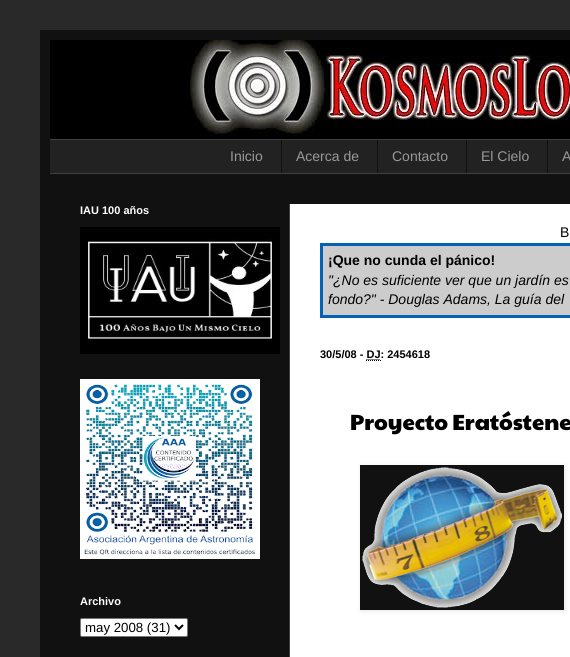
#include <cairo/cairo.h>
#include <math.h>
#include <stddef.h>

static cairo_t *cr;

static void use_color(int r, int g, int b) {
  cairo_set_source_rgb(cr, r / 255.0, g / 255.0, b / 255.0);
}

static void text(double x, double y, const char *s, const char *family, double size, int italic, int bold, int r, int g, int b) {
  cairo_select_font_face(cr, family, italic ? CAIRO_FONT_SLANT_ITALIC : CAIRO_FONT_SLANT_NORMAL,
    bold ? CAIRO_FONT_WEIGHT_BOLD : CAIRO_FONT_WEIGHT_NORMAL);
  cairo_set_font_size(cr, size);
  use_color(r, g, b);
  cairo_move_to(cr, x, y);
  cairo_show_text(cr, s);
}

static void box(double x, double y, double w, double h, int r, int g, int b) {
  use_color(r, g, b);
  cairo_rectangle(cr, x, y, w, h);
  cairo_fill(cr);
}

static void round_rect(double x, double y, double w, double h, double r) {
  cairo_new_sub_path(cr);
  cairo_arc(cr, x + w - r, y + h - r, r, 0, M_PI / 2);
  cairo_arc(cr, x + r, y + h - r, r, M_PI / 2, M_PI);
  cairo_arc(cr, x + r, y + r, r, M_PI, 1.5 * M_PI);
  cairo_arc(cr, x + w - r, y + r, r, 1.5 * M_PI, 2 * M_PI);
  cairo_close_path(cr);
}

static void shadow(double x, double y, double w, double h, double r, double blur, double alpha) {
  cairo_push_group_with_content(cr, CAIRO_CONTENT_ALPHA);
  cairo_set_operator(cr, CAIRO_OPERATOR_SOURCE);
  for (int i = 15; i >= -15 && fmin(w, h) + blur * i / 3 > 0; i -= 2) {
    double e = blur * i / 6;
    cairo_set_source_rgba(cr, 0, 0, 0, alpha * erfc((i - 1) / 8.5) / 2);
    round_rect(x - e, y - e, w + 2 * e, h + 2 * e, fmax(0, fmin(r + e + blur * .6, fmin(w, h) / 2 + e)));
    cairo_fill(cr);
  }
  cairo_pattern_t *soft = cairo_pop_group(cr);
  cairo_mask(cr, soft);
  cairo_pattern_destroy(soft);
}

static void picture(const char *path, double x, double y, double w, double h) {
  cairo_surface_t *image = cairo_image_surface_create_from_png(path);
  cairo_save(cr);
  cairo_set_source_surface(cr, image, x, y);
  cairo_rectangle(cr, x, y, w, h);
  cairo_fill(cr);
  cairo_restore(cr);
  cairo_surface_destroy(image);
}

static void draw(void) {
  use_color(41, 41, 41);
  cairo_paint(cr);
  box(40, 30, 530, 627, 17, 17, 17);
  picture("img_01.png", 50, 40, 520, 99);
  box(50, 140, 520, 33, 34, 34, 34);
  box(50, 139, 520, 1, 64, 64, 64);
  box(50, 173, 520, 1, 64, 64, 64);
  box(281, 140, 1, 33, 17, 17, 17);
  box(377, 140, 1, 33, 17, 17, 17);
  box(466, 140, 1, 33, 17, 17, 17);
  box(547, 140, 1, 33, 17, 17, 17);
  box(289, 204, 1, 453, 64, 64, 64);
  picture("img_02.png", 80, 227, 200, 127);
  picture("img_03.png", 80, 379, 180, 180);
  use_color(255, 255, 255);
  round_rect(80.5, 618.5, 107, 18, 1.5);
  cairo_fill_preserve(cr);
  use_color(118, 118, 118);
  cairo_set_line_width(cr, 1);
  cairo_stroke(cr);
  cairo_new_path(cr);
  cairo_move_to(cr, 175, 625);
  cairo_line_to(cr, 179, 629);
  cairo_line_to(cr, 183, 625);
  use_color(0, 0, 0);
  cairo_set_line_width(cr, 2);
  cairo_stroke(cr);
  box(290, 204, 280, 453, 255, 255, 255);
  use_color(204, 204, 204);
  cairo_rectangle(cr, 321.5, 244.5, 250, 72);
  cairo_fill_preserve(cr);
  use_color(4, 98, 181);
  cairo_set_line_width(cr, 3);
  cairo_stroke(cr);
  cairo_new_path(cr);
  cairo_move_to(cr, 366, 360.5);
  cairo_line_to(cr, 381, 360.5);
  cairo_move_to(cr, 366.5, 359.5);
  cairo_line_to(cr, 380.5, 359.5);
  use_color(0, 0, 0);
  cairo_set_line_width(cr, 1);
  cairo_set_dash(cr, (double[]){1, 1}, 2, 0);
  cairo_stroke(cr);
  use_color(0, 0, 0);
  shadow(361, 466, 204, 145, 0, 2.5, 0.1);
  box(360, 465, 204, 145, 17, 17, 17);
  picture("img_04.png", 362, 467, 200, 141);
  text(230, 161, "Inicio", "Liberation Sans", 14, 0, 0, 153, 153, 153);
  text(296, 161, "Acerca de", "Liberation Sans", 14, 0, 0, 153, 153, 153);
  text(392, 161, "Contacto", "Liberation Sans", 14, 0, 0, 153, 153, 153);
  text(481, 161, "El Cielo", "Liberation Sans", 14, 0, 0, 153, 153, 153);
  text(562, 161, "A", "Liberation Sans", 14, 0, 0, 153, 153, 153);
  text(80, 214, "IAU 100 años", "Liberation Sans", 11, 0, 1, 255, 255, 255);
  text(80, 605, "Archivo", "Liberation Sans", 11, 0, 1, 255, 255, 255);
  text(85, 632, "may 2008 (31)", "Liberation Sans", 13.25, 0, 0, 0, 0, 0);
  text(560, 237, "B", "Liberation Sans", 14, 0, 0, 0, 0, 0);
  text(328, 265, "¡Que no cunda el pánico!", "Liberation Sans", 14, 0, 1, 0, 0, 0);
  text(328, 285, "\"¿No es suficiente ver que un jardín es", "Liberation Sans", 14, 1, 0, 0, 0, 0);
  text(328, 304, "fondo?\" - Douglas Adams, La guía del", "Liberation Sans", 14, 1, 0, 0, 0, 0);
  text(320, 358, "30/5/08 - DJ: 2454618", "Liberation Sans", 11, 0, 1, 0, 0, 0);
  text(350, 430, "Proyecto Eratóstene", "Paytone One", 22, 0, 0, 0, 0, 0);
}

int main(void) {
  cairo_surface_t *surface = cairo_image_surface_create(CAIRO_FORMAT_RGB24, 570, 657);
  cr = cairo_create(surface);
  cairo_font_options_t *options = cairo_font_options_create();
  cairo_font_options_set_hint_metrics(options, CAIRO_HINT_METRICS_OFF);
  cairo_font_options_set_hint_style(options, CAIRO_HINT_STYLE_NONE);
  cairo_set_font_options(cr, options);
  cairo_set_miter_limit(cr, 4);
  draw();
  cairo_surface_write_to_png(surface, "out.png");
  cairo_font_options_destroy(options);
  cairo_destroy(cr);
  cairo_surface_destroy(surface);
  return 0;
}
